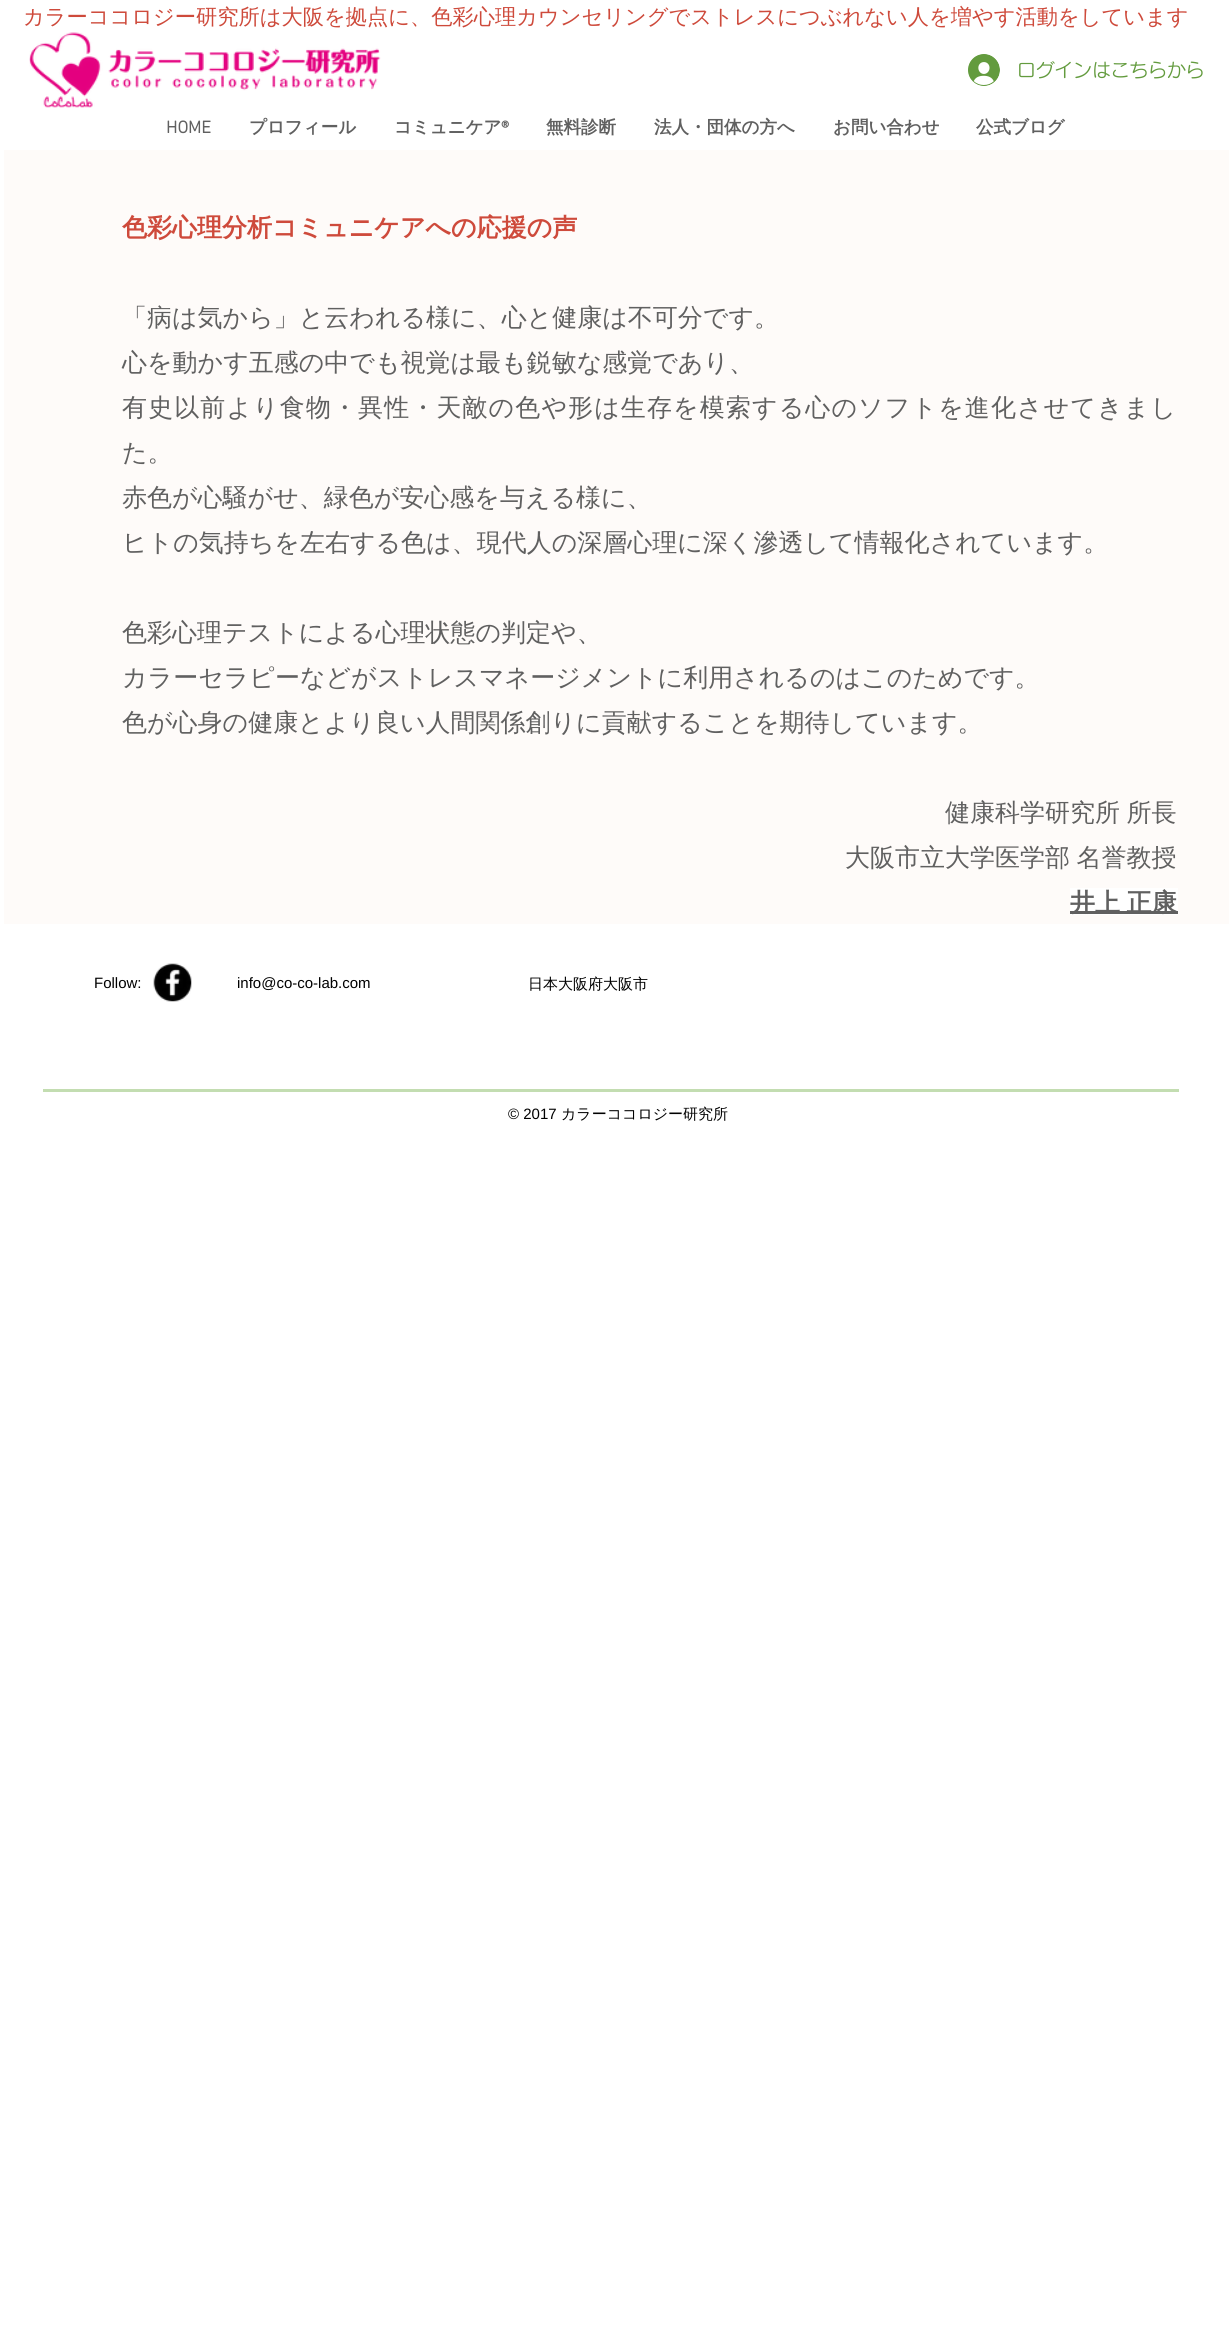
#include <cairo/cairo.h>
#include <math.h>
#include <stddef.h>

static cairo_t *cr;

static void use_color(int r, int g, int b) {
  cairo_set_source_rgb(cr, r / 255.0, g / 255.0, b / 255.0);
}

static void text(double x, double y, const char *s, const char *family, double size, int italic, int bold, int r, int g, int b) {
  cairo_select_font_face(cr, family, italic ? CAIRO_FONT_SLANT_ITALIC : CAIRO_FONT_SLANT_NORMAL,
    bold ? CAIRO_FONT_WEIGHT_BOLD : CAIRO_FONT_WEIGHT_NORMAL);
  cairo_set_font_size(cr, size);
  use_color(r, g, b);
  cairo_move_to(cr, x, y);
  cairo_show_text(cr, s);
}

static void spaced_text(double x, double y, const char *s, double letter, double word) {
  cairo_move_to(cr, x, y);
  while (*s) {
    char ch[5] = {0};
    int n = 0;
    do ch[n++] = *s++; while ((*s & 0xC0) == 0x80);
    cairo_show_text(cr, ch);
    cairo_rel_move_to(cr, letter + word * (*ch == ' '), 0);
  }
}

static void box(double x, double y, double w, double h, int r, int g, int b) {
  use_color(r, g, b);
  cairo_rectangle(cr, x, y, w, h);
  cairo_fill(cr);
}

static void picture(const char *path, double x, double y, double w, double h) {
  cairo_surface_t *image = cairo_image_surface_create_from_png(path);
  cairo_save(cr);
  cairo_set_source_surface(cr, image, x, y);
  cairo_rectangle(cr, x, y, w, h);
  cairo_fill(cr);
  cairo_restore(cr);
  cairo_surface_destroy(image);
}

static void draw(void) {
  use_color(255, 255, 255);
  cairo_paint(cr);
  picture("img_01.png", 29, 32, 352, 76);
  picture("img_02.png", 968, 54, 32, 32);
  box(4, 150, 1225, 774, 254, 251, 249);
  box(1070, 888, 108, 27, 255, 255, 255);
  box(1070, 911, 108, 3, 96, 96, 96);
  picture("img_03.png", 153, 963, 39, 39);
  box(43, 1089, 1136, 3, 195, 221, 177);
  text(23, 24, "カラーココロジー研究所は大阪を拠点に、色彩心理カウンセリングでストレスにつぶれない人を増やす活動をしています", "WenQuanYi Zen Hei Medium", 21.25, 0, 0, 206, 74, 59);
  text(1017, 77, "ログインはこちらから", "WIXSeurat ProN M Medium", 18.75, 0, 0, 99, 155, 62);
  text(166, 133, "HOME", "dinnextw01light", 17.5, 0, 1, 96, 96, 96);
  text(249, 133, "プロフィール", "WenQuanYi Zen Hei", 17.5, 0, 1, 96, 96, 96);
  text(394, 133, "コミュニケア", "WenQuanYi Zen Hei", 17.5, 0, 1, 96, 96, 96);
  text(501, 133, "®", "dinnextw01light", 17.5, 0, 1, 96, 96, 96);
  text(546, 133, "無料診断", "WenQuanYi Zen Hei", 17.5, 0, 1, 96, 96, 96);
  text(654, 133, "法人・団体の方へ", "WenQuanYi Zen Hei", 17.5, 0, 1, 96, 96, 96);
  text(833, 133, "お問い合わせ", "WenQuanYi Zen Hei", 17.5, 0, 1, 96, 96, 96);
  text(976, 133, "公式ブログ", "WenQuanYi Zen Hei", 17.5, 0, 1, 96, 96, 96);
  text(122, 236, "色彩心理分析コミュニケアへの応援の声", "WenQuanYi Zen Hei", 25, 0, 1, 206, 74, 59);
  text(122, 326, "「病は気から」と云われる様に、心と健康は不可分です。", "WenQuanYi Zen Hei Medium", 25, 0, 0, 96, 96, 96);
  text(122, 371, "心を動かす五感の中でも視覚は最も鋭敏な感覚であり、", "WenQuanYi Zen Hei Medium", 25, 0, 0, 96, 96, 96);
  spaced_text(122, 416, "有史以前より食物・異性・天敵の色や形は生存を模索する心のソフトを進化させてきまし", 1.1, 0);
  text(122, 461, "た。", "WenQuanYi Zen Hei Medium", 25, 0, 0, 96, 96, 96);
  text(122, 506, "赤色が心騒がせ、緑色が安心感を与える様に、", "WenQuanYi Zen Hei Medium", 25, 0, 0, 96, 96, 96);
  text(122, 551, "ヒトの気持ちを左右する色は、現代人の深層心理に深く滲透して情報化されています。", "WenQuanYi Zen Hei Medium", 25, 0, 0, 96, 96, 96);
  text(122, 641, "色彩心理テストによる心理状態の判定や、", "WenQuanYi Zen Hei Medium", 25, 0, 0, 96, 96, 96);
  text(122, 686, "カラーセラピーなどがストレスマネージメントに利用されるのはこのためです。", "WenQuanYi Zen Hei Medium", 25, 0, 0, 96, 96, 96);
  text(122, 731, "色が心身の健康とより良い人間関係創りに貢献することを期待しています。", "WenQuanYi Zen Hei Medium", 25, 0, 0, 96, 96, 96);
  spaced_text(945, 821, "健康科学研究所 所長", 0, -1);
  spaced_text(845, 866, "大阪市立大学医学部 名誉教授", 0, -1);
  cairo_select_font_face(cr, "WenQuanYi Zen Hei", CAIRO_FONT_SLANT_NORMAL, CAIRO_FONT_WEIGHT_BOLD);
  spaced_text(1070, 911, "井上 正康", 0, -1);
  text(94, 988, "Follow:", "Liberation Sans", 15, 0, 0, 0, 0, 0);
  text(237, 988, "info@co-co-lab.com", "Liberation Sans", 15, 0, 0, 0, 0, 0);
  text(528, 989, "日本大阪府大阪市", "WenQuanYi Zen Hei Medium", 15, 0, 0, 0, 0, 0);
  text(508, 1119, "© 2017", "Liberation Sans", 15, 0, 0, 0, 0, 0);
  text(561, 1119, "カラーココロジー研究所", "WenQuanYi Zen Hei Medium", 15, 0, 0, 0, 0, 0);
}

int main(void) {
  cairo_surface_t *surface = cairo_image_surface_create(CAIRO_FORMAT_RGB24, 1231, 2328);
  cr = cairo_create(surface);
  cairo_font_options_t *options = cairo_font_options_create();
  cairo_font_options_set_hint_metrics(options, CAIRO_HINT_METRICS_OFF);
  cairo_font_options_set_hint_style(options, CAIRO_HINT_STYLE_NONE);
  cairo_set_font_options(cr, options);
  cairo_set_miter_limit(cr, 4);
  draw();
  cairo_surface_write_to_png(surface, "out.png");
  cairo_font_options_destroy(options);
  cairo_destroy(cr);
  cairo_surface_destroy(surface);
  return 0;
}
